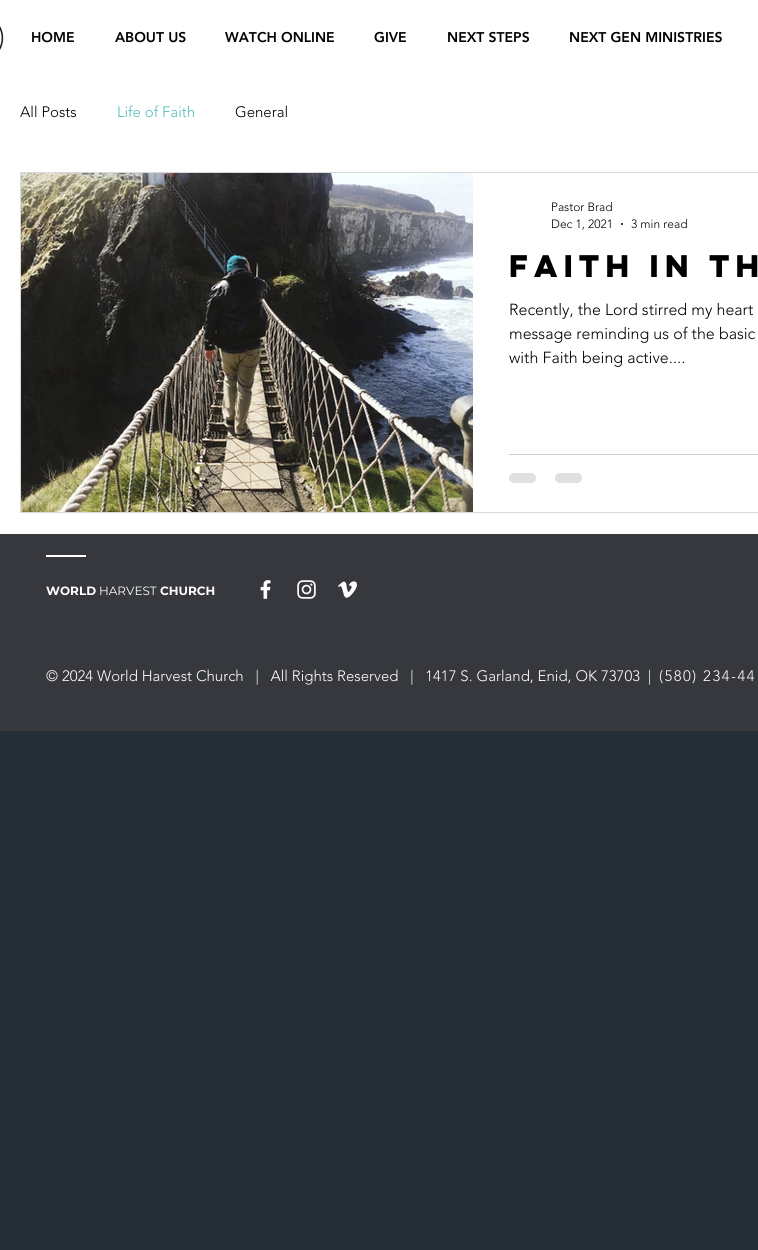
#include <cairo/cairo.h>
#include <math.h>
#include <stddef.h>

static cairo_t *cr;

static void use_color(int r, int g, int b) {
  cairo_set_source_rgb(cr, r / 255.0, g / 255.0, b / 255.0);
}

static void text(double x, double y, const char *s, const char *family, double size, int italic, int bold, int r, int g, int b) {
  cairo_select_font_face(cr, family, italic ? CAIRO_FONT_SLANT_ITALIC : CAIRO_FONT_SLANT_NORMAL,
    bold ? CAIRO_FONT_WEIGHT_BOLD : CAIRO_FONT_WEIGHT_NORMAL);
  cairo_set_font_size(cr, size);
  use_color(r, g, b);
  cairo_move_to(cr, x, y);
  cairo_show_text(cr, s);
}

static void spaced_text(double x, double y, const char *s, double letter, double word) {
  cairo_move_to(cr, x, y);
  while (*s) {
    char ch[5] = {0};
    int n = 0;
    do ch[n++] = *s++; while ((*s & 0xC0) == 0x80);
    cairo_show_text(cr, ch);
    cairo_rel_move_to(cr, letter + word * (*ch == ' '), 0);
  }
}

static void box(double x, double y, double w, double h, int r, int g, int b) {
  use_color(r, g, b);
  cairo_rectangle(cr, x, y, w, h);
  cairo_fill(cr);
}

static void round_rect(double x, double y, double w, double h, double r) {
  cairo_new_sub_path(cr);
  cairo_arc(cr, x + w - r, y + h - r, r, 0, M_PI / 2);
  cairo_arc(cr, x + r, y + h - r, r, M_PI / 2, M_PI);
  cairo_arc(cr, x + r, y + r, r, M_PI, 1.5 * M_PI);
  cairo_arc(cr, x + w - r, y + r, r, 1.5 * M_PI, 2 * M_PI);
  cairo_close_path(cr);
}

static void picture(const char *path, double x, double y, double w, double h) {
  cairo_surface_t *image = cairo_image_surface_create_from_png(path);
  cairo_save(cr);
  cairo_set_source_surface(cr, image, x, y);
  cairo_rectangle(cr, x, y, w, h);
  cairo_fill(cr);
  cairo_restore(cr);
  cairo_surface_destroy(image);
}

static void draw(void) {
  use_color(37, 46, 54);
  cairo_paint(cr);
  box(0, 0, 758, 534, 255, 255, 255);
  picture("img_01.png", 0, 26, 4, 24);
  cairo_rectangle(cr, 20.5, 172.5, 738, 340);
  use_color(217, 217, 217);
  cairo_set_line_width(cr, 1);
  cairo_stroke(cr);
  picture("img_02.png", 21, 173, 452, 339);
  use_color(0, 0, 0);
  cairo_arc(cr, 622, 224, 1, 0, 2 * M_PI);
  cairo_fill(cr);
  box(509, 454, 249, 1, 204, 204, 204);
  use_color(224, 224, 224);
  round_rect(509, 473, 27, 10, 5);
  cairo_fill(cr);
  round_rect(555, 473, 27, 10, 5);
  cairo_fill(cr);
  box(0, 534, 758, 197, 54, 56, 61);
  box(46, 555, 40, 2, 255, 255, 255);
  picture("img_03.png", 260, 580, 11, 19);
  picture("img_04.png", 297, 580, 19, 19);
  picture("img_05.png", 338, 581, 20, 17);
  text(31, 42, "HOME", "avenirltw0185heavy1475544 Black", 14, 0, 0, 0, 0, 0);
  text(115, 42, "ABOUT US", "avenirltw0185heavy1475544 Black", 14, 0, 0, 0, 0, 0);
  text(225, 42, "WATCH ONLINE", "avenirltw0185heavy1475544 Black", 14, 0, 0, 0, 0, 0);
  text(374, 42, "GIVE", "avenirltw0185heavy1475544 Black", 14, 0, 0, 0, 0, 0);
  text(447, 42, "NEXT STEPS", "avenirltw0185heavy1475544 Black", 14, 0, 0, 0, 0, 0);
  text(569, 42, "NEXT GEN MINISTRIES", "avenirltw0185heavy1475544 Black", 14, 0, 0, 0, 0, 0);
  text(20, 117, "All Posts", "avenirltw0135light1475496 Light", 15, 0, 0, 0, 0, 0);
  text(117, 117, "Life of Faith", "avenirltw0135light1475496 Light", 15, 0, 0, 87, 187, 191);
  text(235, 117, "General", "avenirltw0135light1475496 Light", 15, 0, 0, 0, 0, 0);
  text(551, 211, "Pastor Brad", "avenirltw0135light1475496 Light", 12, 0, 0, 0, 0, 0);
  text(551, 228, "Dec 1, 2021", "avenirltw0135light1475496 Light", 12, 0, 0, 0, 0, 0);
  text(631, 228, "3 min read", "avenirltw0135light1475496 Light", 12, 0, 0, 0, 0, 0);
  text(509, 277, "Faith in th", "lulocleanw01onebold", 28, 0, 1, 0, 0, 0);
  text(509, 315, "Recently, the Lord stirred my heart", "avenirltw0135light1475496 Light", 16, 0, 0, 0, 0, 0);
  text(509, 339, "message reminding us of the basic", "avenirltw0135light1475496 Light", 16, 0, 0, 0, 0, 0);
  text(509, 363, "with Faith being active....", "avenirltw0135light1475496 Light", 16, 0, 0, 0, 0, 0);
  text(46, 595, "WORLD", "Montserrat", 12, 0, 1, 255, 255, 255);
  text(99, 595, "HARVEST", "Montserrat", 12, 0, 0, 255, 255, 255);
  text(160, 595, "CHURCH", "Montserrat", 12, 0, 1, 255, 255, 255);
  text(46, 681, "© 2024 World Harvest Church   |   All Rights Reserved   |   1417 S. Garland, Enid, OK 73703  |", "avenirltw0135light1475496 Light", 15, 0, 0, 255, 255, 255);
  spaced_text(659, 681, "(580) 234-44", 1.5, 0);
}

int main(void) {
  cairo_surface_t *surface = cairo_image_surface_create(CAIRO_FORMAT_RGB24, 758, 1250);
  cr = cairo_create(surface);
  cairo_font_options_t *options = cairo_font_options_create();
  cairo_font_options_set_hint_metrics(options, CAIRO_HINT_METRICS_OFF);
  cairo_font_options_set_hint_style(options, CAIRO_HINT_STYLE_NONE);
  cairo_set_font_options(cr, options);
  cairo_set_miter_limit(cr, 4);
  draw();
  cairo_surface_write_to_png(surface, "out.png");
  cairo_font_options_destroy(options);
  cairo_destroy(cr);
  cairo_surface_destroy(surface);
  return 0;
}
